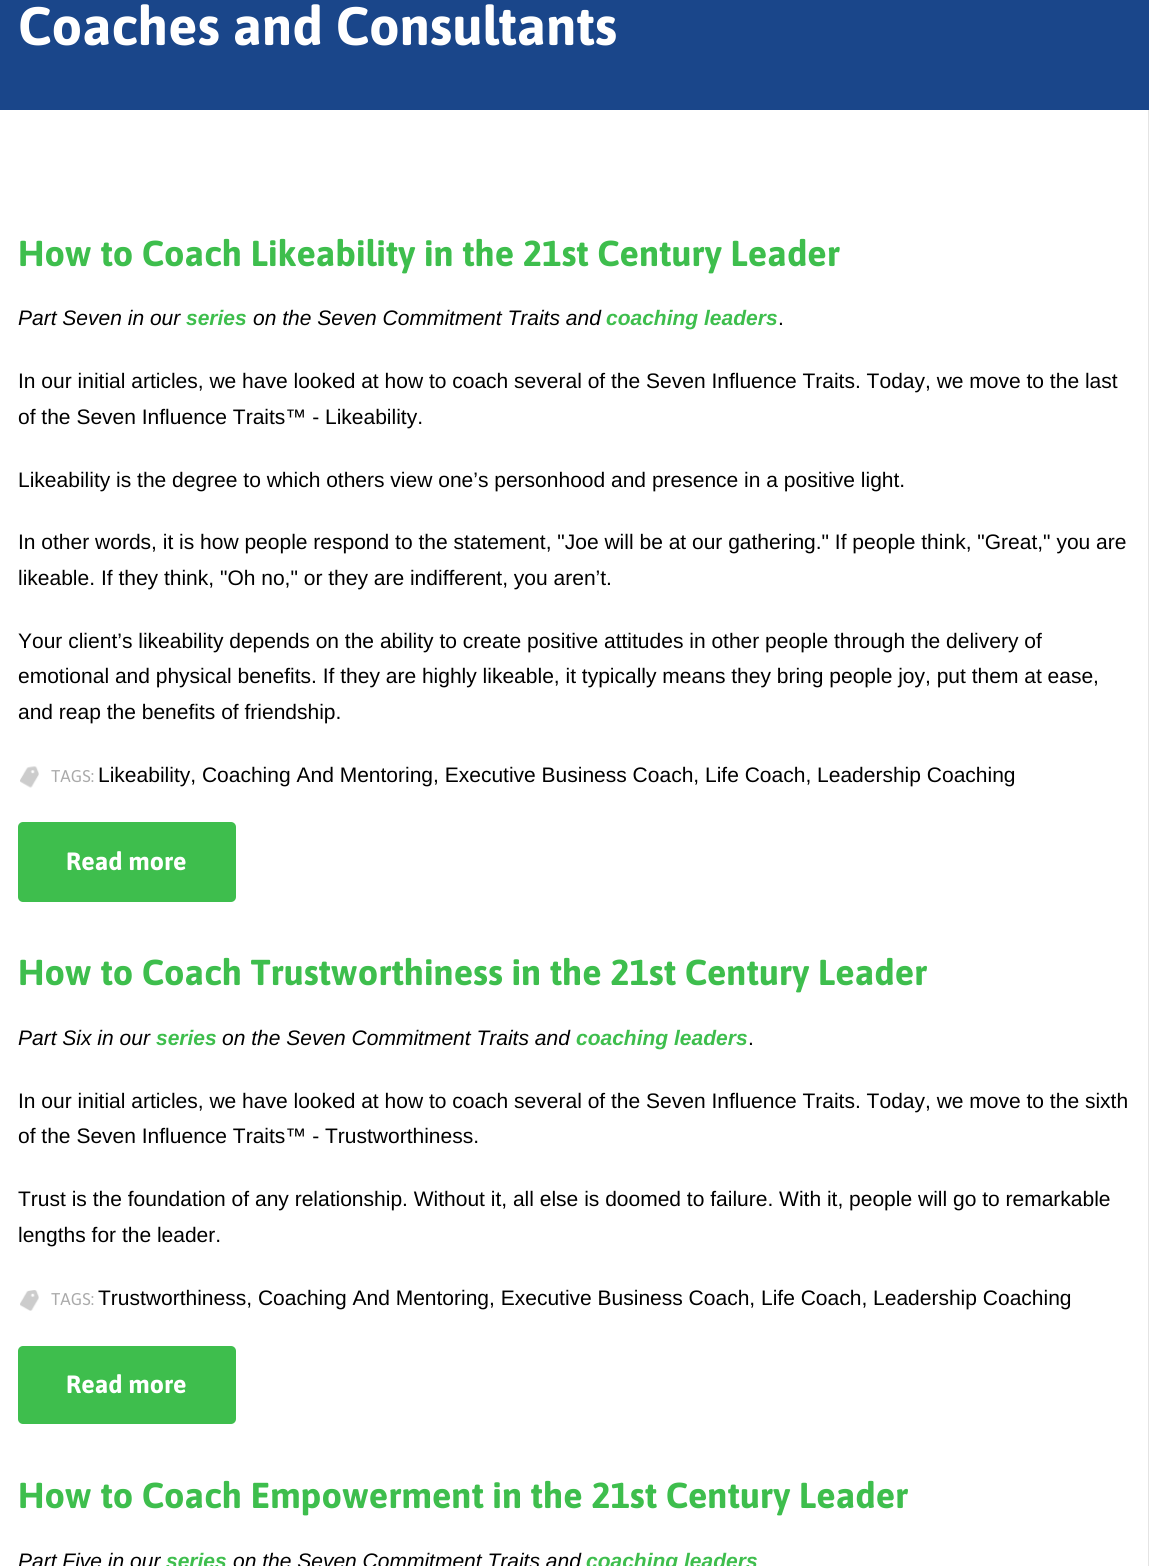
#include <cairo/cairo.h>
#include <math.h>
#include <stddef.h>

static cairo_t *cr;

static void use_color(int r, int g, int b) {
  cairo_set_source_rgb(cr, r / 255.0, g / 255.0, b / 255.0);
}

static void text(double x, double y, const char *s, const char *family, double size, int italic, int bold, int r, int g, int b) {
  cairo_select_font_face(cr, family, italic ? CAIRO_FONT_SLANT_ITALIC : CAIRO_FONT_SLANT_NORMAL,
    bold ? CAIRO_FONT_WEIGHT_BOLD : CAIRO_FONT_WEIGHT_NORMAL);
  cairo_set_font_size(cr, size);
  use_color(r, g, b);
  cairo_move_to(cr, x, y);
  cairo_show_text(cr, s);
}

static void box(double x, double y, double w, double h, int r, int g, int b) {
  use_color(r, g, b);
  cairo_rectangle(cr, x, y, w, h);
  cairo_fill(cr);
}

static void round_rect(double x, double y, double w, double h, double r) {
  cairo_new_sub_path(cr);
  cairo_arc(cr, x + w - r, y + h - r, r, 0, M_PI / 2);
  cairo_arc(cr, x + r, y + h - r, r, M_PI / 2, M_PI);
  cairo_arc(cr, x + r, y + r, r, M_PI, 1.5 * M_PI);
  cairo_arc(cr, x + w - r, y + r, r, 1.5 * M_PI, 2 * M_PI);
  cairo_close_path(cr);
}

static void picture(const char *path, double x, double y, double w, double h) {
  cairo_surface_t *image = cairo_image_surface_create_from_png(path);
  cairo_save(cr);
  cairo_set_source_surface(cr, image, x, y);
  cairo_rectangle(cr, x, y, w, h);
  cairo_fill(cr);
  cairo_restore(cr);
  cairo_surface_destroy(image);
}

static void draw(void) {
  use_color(255, 255, 255);
  cairo_paint(cr);
  box(0, 0, 1149, 110, 26, 70, 138);
  box(1148, 110, 1, 1456, 228, 228, 228);
  picture("img_01.png", 20, 766, 19, 22);
  use_color(62, 190, 77);
  round_rect(18, 822, 218, 80, 5);
  cairo_fill(cr);
  picture("img_02.png", 20, 1290, 19, 21);
  round_rect(18, 1346, 218, 78, 5);
  cairo_fill(cr);
  text(18, 45, "Coaches and Consultants", "Asap", 54, 0, 1, 255, 255, 255);
  text(18, 266, "How to Coach Likeability in the 21st Century Leader", "Asap", 36, 0, 1, 62, 190, 77);
  text(18, 325, "Part Seven in our", "Liberation Sans", 21, 1, 0, 0, 0, 0);
  text(186, 325, "series", "Liberation Sans", 21, 1, 1, 62, 190, 77);
  text(253, 325, "on the Seven Commitment Traits and", "Liberation Sans", 21, 1, 0, 0, 0, 0);
  text(606, 325, "coaching leaders", "Liberation Sans", 21, 1, 1, 62, 190, 77);
  text(778, 325, ".", "Liberation Sans", 21, 0, 0, 0, 0, 0);
  text(18, 388, "In our initial articles, we have looked at how to coach several of the Seven Influence Traits. Today, we move to the last", "Liberation Sans", 21, 0, 0, 0, 0, 0);
  text(18, 424, "of the Seven Influence Traits™ - Likeability.", "Liberation Sans", 21, 0, 0, 0, 0, 0);
  text(18, 487, "Likeability is the degree to which others view one’s personhood and presence in a positive light.", "Liberation Sans", 21, 0, 0, 0, 0, 0);
  text(18, 549, "In other words, it is how people respond to the statement, \"Joe will be at our gathering.\" If people think, \"Great,\" you are", "Liberation Sans", 21, 0, 0, 0, 0, 0);
  text(18, 585, "likeable. If they think, \"Oh no,\" or they are indifferent, you aren’t.", "Liberation Sans", 21, 0, 0, 0, 0, 0);
  text(18, 648, "Your client’s likeability depends on the ability to create positive attitudes in other people through the delivery of", "Liberation Sans", 21, 0, 0, 0, 0, 0);
  text(18, 683, "emotional and physical benefits. If they are highly likeable, it typically means they bring people joy, put them at ease,", "Liberation Sans", 21, 0, 0, 0, 0, 0);
  text(18, 719, "and reap the benefits of friendship.", "Liberation Sans", 21, 0, 0, 0, 0, 0);
  text(51, 782, "TAGS:", "Asap", 17, 0, 0, 170, 170, 170);
  text(98, 782, "Likeability, Coaching And Mentoring, Executive Business Coach, Life Coach, Leadership Coaching", "Liberation Sans", 21, 0, 0, 0, 0, 0);
  text(66, 870, "Read more", "Asap", 25, 0, 1, 255, 255, 255);
  text(18, 985, "How to Coach Trustworthiness in the 21st Century Leader", "Asap", 36, 0, 1, 62, 190, 77);
  text(18, 1045, "Part Six in our", "Liberation Sans", 21, 1, 0, 0, 0, 0);
  text(156, 1045, "series", "Liberation Sans", 21, 1, 1, 62, 190, 77);
  text(222, 1045, "on the Seven Commitment Traits and", "Liberation Sans", 21, 1, 0, 0, 0, 0);
  text(576, 1045, "coaching leaders", "Liberation Sans", 21, 1, 1, 62, 190, 77);
  text(748, 1045, ".", "Liberation Sans", 21, 0, 0, 0, 0, 0);
  text(18, 1108, "In our initial articles, we have looked at how to coach several of the Seven Influence Traits. Today, we move to the sixth", "Liberation Sans", 21, 0, 0, 0, 0, 0);
  text(18, 1143, "of the Seven Influence Traits™ - Trustworthiness.", "Liberation Sans", 21, 0, 0, 0, 0, 0);
  text(18, 1206, "Trust is the foundation of any relationship. Without it, all else is doomed to failure. With it, people will go to remarkable", "Liberation Sans", 21, 0, 0, 0, 0, 0);
  text(18, 1242, "lengths for the leader.", "Liberation Sans", 21, 0, 0, 0, 0, 0);
  text(51, 1305, "TAGS:", "Asap", 17, 0, 0, 170, 170, 170);
  text(98, 1305, "Trustworthiness, Coaching And Mentoring, Executive Business Coach, Life Coach, Leadership Coaching", "Liberation Sans", 21, 0, 0, 0, 0, 0);
  text(66, 1393, "Read more", "Asap", 25, 0, 1, 255, 255, 255);
  text(18, 1508, "How to Coach Empowerment in the 21st Century Leader", "Asap", 36, 0, 1, 62, 190, 77);
  text(18, 1568, "Part Five in our", "Liberation Sans", 21, 1, 0, 0, 0, 0);
  text(166, 1568, "series", "Liberation Sans", 21, 1, 1, 62, 190, 77);
  text(233, 1568, "on the Seven Commitment Traits and", "Liberation Sans", 21, 1, 0, 0, 0, 0);
  text(586, 1568, "coaching leaders", "Liberation Sans", 21, 1, 1, 62, 190, 77);
}

int main(void) {
  cairo_surface_t *surface = cairo_image_surface_create(CAIRO_FORMAT_RGB24, 1149, 1566);
  cr = cairo_create(surface);
  cairo_font_options_t *options = cairo_font_options_create();
  cairo_font_options_set_hint_metrics(options, CAIRO_HINT_METRICS_OFF);
  cairo_font_options_set_hint_style(options, CAIRO_HINT_STYLE_NONE);
  cairo_set_font_options(cr, options);
  cairo_set_miter_limit(cr, 4);
  draw();
  cairo_surface_write_to_png(surface, "out.png");
  cairo_font_options_destroy(options);
  cairo_destroy(cr);
  cairo_surface_destroy(surface);
  return 0;
}
